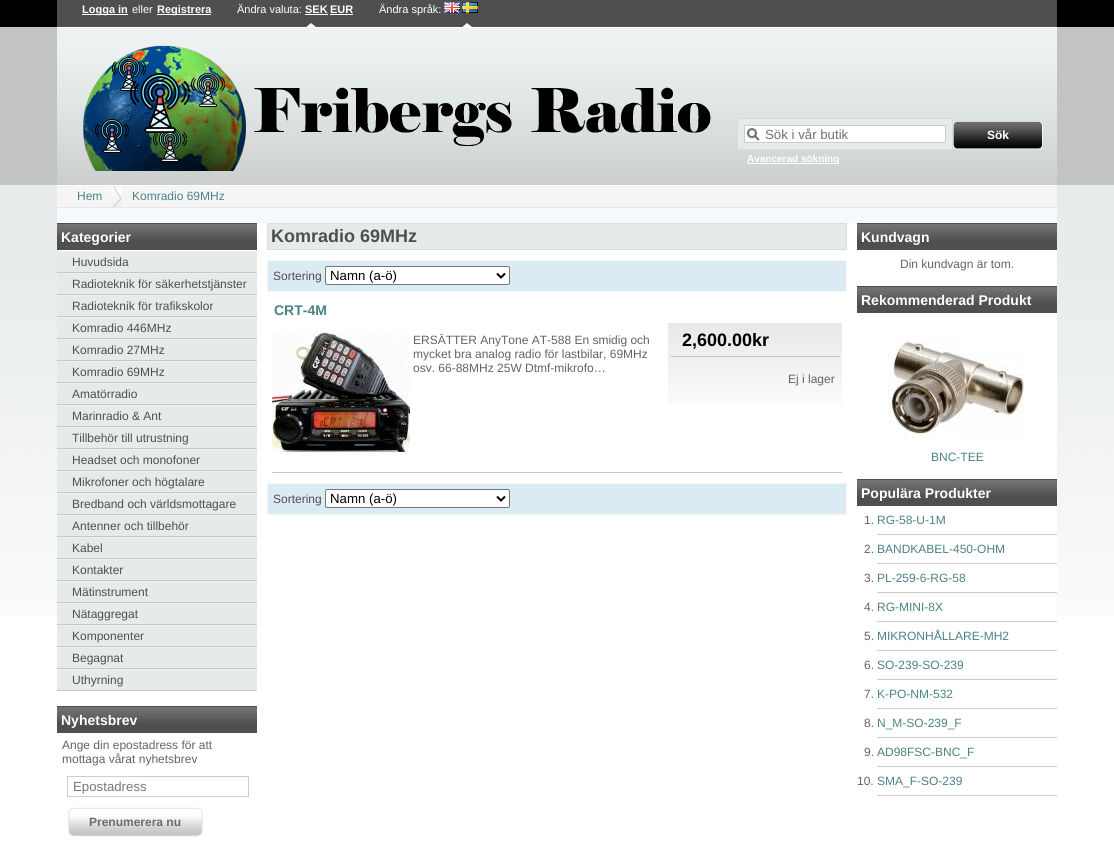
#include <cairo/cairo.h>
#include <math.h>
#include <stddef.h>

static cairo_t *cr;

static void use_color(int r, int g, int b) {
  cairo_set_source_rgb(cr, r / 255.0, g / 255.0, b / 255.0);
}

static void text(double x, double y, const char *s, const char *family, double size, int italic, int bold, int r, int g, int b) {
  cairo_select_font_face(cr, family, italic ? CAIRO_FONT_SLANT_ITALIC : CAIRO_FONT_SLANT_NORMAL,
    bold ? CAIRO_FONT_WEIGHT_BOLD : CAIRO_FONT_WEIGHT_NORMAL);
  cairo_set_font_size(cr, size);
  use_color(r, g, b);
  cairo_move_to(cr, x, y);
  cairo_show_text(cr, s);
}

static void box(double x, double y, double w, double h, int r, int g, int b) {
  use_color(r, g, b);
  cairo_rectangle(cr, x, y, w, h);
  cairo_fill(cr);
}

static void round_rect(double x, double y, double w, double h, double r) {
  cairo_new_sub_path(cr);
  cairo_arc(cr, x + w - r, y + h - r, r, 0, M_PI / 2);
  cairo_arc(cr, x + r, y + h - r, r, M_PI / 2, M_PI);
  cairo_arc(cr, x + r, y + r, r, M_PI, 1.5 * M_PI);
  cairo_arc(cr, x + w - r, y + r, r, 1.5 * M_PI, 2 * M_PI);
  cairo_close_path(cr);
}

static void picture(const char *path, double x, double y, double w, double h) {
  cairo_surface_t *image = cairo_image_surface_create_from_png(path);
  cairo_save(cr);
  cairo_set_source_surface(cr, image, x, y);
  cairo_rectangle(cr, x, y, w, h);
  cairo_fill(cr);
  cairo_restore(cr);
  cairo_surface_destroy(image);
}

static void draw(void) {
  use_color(255, 255, 255);
  cairo_paint(cr);
  picture("img_01.png", 0, 0, 1114, 616);
  box(57, 208, 1000, 15, 246, 250, 252);
  box(57, 0, 1000, 26, 79, 79, 79);
  box(57, 26, 1000, 1, 86, 86, 86);
  box(57, 27, 1000, 1, 255, 255, 255);
  box(82, 14, 46, 1, 255, 255, 255);
  box(157, 14, 54, 1, 255, 255, 255);
  picture("img_02.png", 306, 23, 10, 4);
  box(305, 14, 23, 1, 255, 255, 255);
  box(330, 14, 23, 1, 255, 255, 255);
  picture("img_03.png", 444, 2, 16, 11);
  picture("img_02.png", 462, 23, 10, 4);
  picture("img_04.png", 462, 2, 16, 11);
  picture("img_05.png", 57, 28, 1000, 157);
  box(57, 185, 1000, 1, 255, 255, 255);
  picture("img_06.png", 83, 45, 628, 126);
  use_color(229, 235, 235);
  cairo_rectangle(cr, 737.5, 118.5, 215, 31);
  cairo_fill_preserve(cr);
  use_color(218, 218, 218);
  cairo_set_line_width(cr, 1);
  cairo_stroke(cr);
  box(745, 126, 200, 16, 255, 255, 255);
  picture("img_07.png", 747, 128, 13, 13);
  cairo_rectangle(cr, 744.5, 125.5, 201, 17);
  use_color(205, 205, 205);
  cairo_stroke(cr);
  picture("img_08.png", 953, 121, 90, 29);
  box(747, 163, 92, 1, 255, 255, 255);
  box(57, 186, 1000, 21, 245, 245, 245);
  box(57, 207, 1000, 1, 234, 230, 230);
  picture("img_09.png", 111, 186, 11, 21);
  box(57, 223, 1000, 393, 255, 255, 255);
  picture("img_10.png", 57, 224, 200, 26);
  box(57, 223, 200, 1, 79, 79, 79);
  box(57, 252, 200, 20, 230, 234, 235);
  box(57, 251, 200, 1, 236, 240, 241);
  box(57, 272, 200, 1, 196, 200, 199);
  box(57, 274, 200, 20, 230, 234, 235);
  box(57, 273, 200, 1, 236, 240, 241);
  box(57, 294, 200, 1, 196, 200, 199);
  box(57, 296, 200, 20, 230, 234, 235);
  box(57, 295, 200, 1, 236, 240, 241);
  box(57, 316, 200, 1, 196, 200, 199);
  box(57, 318, 200, 20, 230, 234, 235);
  box(57, 317, 200, 1, 236, 240, 241);
  box(57, 338, 200, 1, 196, 200, 199);
  box(57, 340, 200, 20, 230, 234, 235);
  box(57, 339, 200, 1, 236, 240, 241);
  box(57, 360, 200, 1, 196, 200, 199);
  box(57, 362, 200, 20, 230, 234, 235);
  box(57, 361, 200, 1, 236, 240, 241);
  box(57, 382, 200, 1, 196, 200, 199);
  box(57, 384, 200, 20, 230, 234, 235);
  box(57, 383, 200, 1, 236, 240, 241);
  box(57, 404, 200, 1, 196, 200, 199);
  box(57, 406, 200, 20, 230, 234, 235);
  box(57, 405, 200, 1, 236, 240, 241);
  box(57, 426, 200, 1, 196, 200, 199);
  box(57, 428, 200, 20, 230, 234, 235);
  box(57, 427, 200, 1, 236, 240, 241);
  box(57, 448, 200, 1, 196, 200, 199);
  box(57, 450, 200, 20, 230, 234, 235);
  box(57, 449, 200, 1, 236, 240, 241);
  box(57, 470, 200, 1, 196, 200, 199);
  box(57, 472, 200, 20, 230, 234, 235);
  box(57, 471, 200, 1, 236, 240, 241);
  box(57, 492, 200, 1, 196, 200, 199);
  box(57, 494, 200, 20, 230, 234, 235);
  box(57, 493, 200, 1, 236, 240, 241);
  box(57, 514, 200, 1, 196, 200, 199);
  box(57, 516, 200, 20, 230, 234, 235);
  box(57, 515, 200, 1, 236, 240, 241);
  box(57, 536, 200, 1, 196, 200, 199);
  box(57, 538, 200, 20, 230, 234, 235);
  box(57, 537, 200, 1, 236, 240, 241);
  box(57, 558, 200, 1, 196, 200, 199);
  box(57, 560, 200, 20, 230, 234, 235);
  box(57, 559, 200, 1, 236, 240, 241);
  box(57, 580, 200, 1, 196, 200, 199);
  box(57, 582, 200, 20, 230, 234, 235);
  box(57, 581, 200, 1, 236, 240, 241);
  box(57, 602, 200, 1, 196, 200, 199);
  box(57, 604, 200, 20, 230, 234, 235);
  box(57, 603, 200, 1, 236, 240, 241);
  box(57, 624, 200, 1, 196, 200, 199);
  box(57, 626, 200, 20, 230, 234, 235);
  box(57, 625, 200, 1, 236, 240, 241);
  box(57, 646, 200, 1, 196, 200, 199);
  box(57, 648, 200, 20, 230, 234, 235);
  box(57, 647, 200, 1, 236, 240, 241);
  box(57, 668, 200, 1, 196, 200, 199);
  box(57, 670, 200, 20, 230, 234, 235);
  box(57, 669, 200, 1, 236, 240, 241);
  box(57, 690, 200, 1, 196, 200, 199);
  picture("img_10.png", 57, 707, 200, 26);
  box(57, 706, 200, 1, 79, 79, 79);
  cairo_rectangle(cr, 67.5, 776.5, 181, 20);
  use_color(205, 205, 205);
  cairo_stroke(cr);
  picture("img_11.png", 68, 807, 135, 30);
  use_color(229, 235, 235);
  cairo_rectangle(cr, 267.5, 223.5, 579, 26);
  cairo_fill_preserve(cr);
  use_color(218, 222, 223);
  cairo_stroke(cr);
  use_color(218, 235, 243);
  cairo_rectangle(cr, 267.5, 260.5, 579, 31);
  cairo_fill_preserve(cr);
  use_color(250, 243, 243);
  cairo_stroke(cr);
  use_color(255, 255, 255);
  round_rect(325.5, 266.5, 184, 18, 1.5);
  cairo_fill_preserve(cr);
  use_color(118, 118, 118);
  cairo_stroke(cr);
  cairo_new_path(cr);
  cairo_move_to(cr, 497, 273.5);
  cairo_line_to(cr, 501, 277.5);
  cairo_line_to(cr, 505, 273.5);
  use_color(0, 0, 0);
  cairo_set_line_width(cr, 2);
  cairo_stroke(cr);
  box(272, 472, 570, 1, 196, 200, 200);
  picture("img_12.png", 272, 331, 138, 128);
  picture("img_13.png", 668, 323, 174, 81);
  box(670, 356, 170, 1, 196, 200, 200);
  use_color(218, 235, 243);
  cairo_rectangle(cr, 267.5, 483.5, 579, 31);
  cairo_fill_preserve(cr);
  use_color(250, 243, 243);
  cairo_set_line_width(cr, 1);
  cairo_stroke(cr);
  use_color(255, 255, 255);
  round_rect(325.5, 489.5, 184, 18, 1.5);
  cairo_fill_preserve(cr);
  use_color(118, 118, 118);
  cairo_stroke(cr);
  cairo_new_path(cr);
  cairo_move_to(cr, 497, 496.5);
  cairo_line_to(cr, 501, 500.5);
  cairo_line_to(cr, 505, 496.5);
  use_color(0, 0, 0);
  cairo_set_line_width(cr, 2);
  cairo_stroke(cr);
  picture("img_10.png", 857, 224, 200, 26);
  box(857, 223, 200, 1, 79, 79, 79);
  picture("img_10.png", 857, 287, 200, 26);
  box(857, 286, 200, 1, 79, 79, 79);
  picture("img_14.png", 888, 334, 138, 104);
  picture("img_10.png", 857, 480, 200, 26);
  box(857, 479, 200, 1, 79, 79, 79);
  box(877, 534, 180, 1, 205, 205, 205);
  box(877, 563, 180, 1, 205, 205, 205);
  box(877, 592, 180, 1, 205, 205, 205);
  box(877, 621, 180, 1, 205, 205, 205);
  box(877, 650, 180, 1, 205, 205, 205);
  box(877, 679, 180, 1, 205, 205, 205);
  box(877, 708, 180, 1, 205, 205, 205);
  box(877, 737, 180, 1, 205, 205, 205);
  box(877, 766, 180, 1, 205, 205, 205);
  box(877, 795, 180, 1, 205, 205, 205);
  text(82, 13, "Logga in", "Liberation Sans", 11, 0, 1, 255, 255, 255);
  text(132, 13, "eller", "Liberation Sans", 11, 0, 0, 255, 255, 255);
  text(157, 13, "Registrera", "Liberation Sans", 11, 0, 1, 255, 255, 255);
  text(237, 13, "Ändra valuta:", "Liberation Sans", 11, 0, 0, 255, 255, 255);
  text(305, 13, "SEK", "Liberation Sans", 11, 0, 1, 255, 255, 255);
  text(330, 13, "EUR", "Liberation Sans", 11, 0, 1, 255, 255, 255);
  text(379, 13, "Ändra språk:", "Liberation Sans", 11, 0, 0, 255, 255, 255);
  text(765, 139, "Sök i vår butik", "Liberation Sans", 13.25, 0, 0, 113, 113, 113);
  text(987, 139, "Sök", "Liberation Sans", 12, 0, 1, 255, 255, 255);
  text(747, 162, "Avancerad sökning", "Liberation Sans", 10, 0, 1, 255, 255, 255);
  text(77, 200, "Hem", "Liberation Sans", 12, 0, 0, 75, 131, 132);
  text(132, 200, "Komradio 69MHz", "Liberation Sans", 12, 0, 0, 75, 131, 132);
  text(61, 242, "Kategorier", "Liberation Sans", 14, 0, 1, 255, 255, 255);
  text(72, 266, "Huvudsida", "Liberation Sans", 12, 0, 0, 80, 78, 79);
  text(72, 288, "Radioteknik för säkerhetstjänster", "Liberation Sans", 12, 0, 0, 80, 78, 79);
  text(72, 310, "Radioteknik för trafikskolor", "Liberation Sans", 12, 0, 0, 80, 78, 79);
  text(72, 332, "Komradio 446MHz", "Liberation Sans", 12, 0, 0, 80, 78, 79);
  text(72, 354, "Komradio 27MHz", "Liberation Sans", 12, 0, 0, 80, 78, 79);
  text(72, 376, "Komradio 69MHz", "Liberation Sans", 12, 0, 0, 80, 78, 79);
  text(72, 398, "Amatörradio", "Liberation Sans", 12, 0, 0, 80, 78, 79);
  text(72, 420, "Marinradio & Ant", "Liberation Sans", 12, 0, 0, 80, 78, 79);
  text(72, 442, "Tillbehör till utrustning", "Liberation Sans", 12, 0, 0, 80, 78, 79);
  text(72, 464, "Headset och monofoner", "Liberation Sans", 12, 0, 0, 80, 78, 79);
  text(72, 486, "Mikrofoner och högtalare", "Liberation Sans", 12, 0, 0, 80, 78, 79);
  text(72, 508, "Bredband och världsmottagare", "Liberation Sans", 12, 0, 0, 80, 78, 79);
  text(72, 530, "Antenner och tillbehör", "Liberation Sans", 12, 0, 0, 80, 78, 79);
  text(72, 552, "Kabel", "Liberation Sans", 12, 0, 0, 80, 78, 79);
  text(72, 574, "Kontakter", "Liberation Sans", 12, 0, 0, 80, 78, 79);
  text(72, 596, "Mätinstrument", "Liberation Sans", 12, 0, 0, 80, 78, 79);
  text(72, 618, "Nätaggregat", "Liberation Sans", 12, 0, 0, 80, 78, 79);
  text(72, 640, "Komponenter", "Liberation Sans", 12, 0, 0, 80, 78, 79);
  text(72, 662, "Begagnat", "Liberation Sans", 12, 0, 0, 80, 78, 79);
  text(72, 684, "Uthyrning", "Liberation Sans", 12, 0, 0, 80, 78, 79);
  text(61, 725, "Nyhetsbrev", "Liberation Sans", 14, 0, 1, 255, 255, 255);
  text(62, 749, "Ange din epostadress för att", "Liberation Sans", 12, 0, 0, 99, 99, 99);
  text(62, 763, "mottaga vårat nyhetsbrev", "Liberation Sans", 12, 0, 0, 99, 99, 99);
  text(73, 791, "Epostadress", "Liberation Sans", 13.25, 0, 0, 119, 119, 119);
  text(89, 826, "Prenumerera nu", "Liberation Sans", 12, 0, 1, 107, 107, 107);
  text(271, 242, "Komradio 69MHz", "Liberation Sans", 18, 0, 1, 80, 78, 79);
  text(273, 280, "Sortering", "Liberation Sans", 12, 0, 0, 80, 78, 79);
  text(330, 280, "Namn (a-ö)", "Liberation Sans", 13.25, 0, 0, 0, 0, 0);
  text(274, 315, "CRT-4M", "Liberation Sans", 14, 0, 1, 75, 131, 132);
  text(413, 344, "ERSÄTTER AnyTone AT-588 En smidig och", "Liberation Sans", 12, 0, 0, 99, 99, 99);
  text(413, 358, "mycket bra analog radio för lastbilar, 69MHz", "Liberation Sans", 12, 0, 0, 99, 99, 99);
  text(413, 372, "osv. 66-88MHz 25W Dtmf-mikrofo…", "Liberation Sans", 12, 0, 0, 99, 99, 99);
  text(682, 346, "2,600.00kr", "Liberation Sans", 18, 0, 1, 0, 0, 0);
  text(788, 383, "Ej i lager", "Liberation Sans", 12, 0, 0, 99, 99, 99);
  text(273, 503, "Sortering", "Liberation Sans", 12, 0, 0, 80, 78, 79);
  text(330, 503, "Namn (a-ö)", "Liberation Sans", 13.25, 0, 0, 0, 0, 0);
  text(861, 242, "Kundvagn", "Liberation Sans", 14, 0, 1, 255, 255, 255);
  text(900, 268, "Din kundvagn är tom.", "Liberation Sans", 12, 0, 0, 99, 99, 99);
  text(861, 305, "Rekommenderad Produkt", "Liberation Sans", 14, 0, 1, 255, 255, 255);
  text(931, 461, "BNC-TEE", "Liberation Sans", 12, 0, 0, 75, 131, 132);
  text(861, 498, "Populära Produkter", "Liberation Sans", 14, 0, 1, 255, 255, 255);
  text(864, 524, "1.", "Liberation Sans", 12, 0, 0, 99, 99, 99);
  text(877, 524, "RG-58-U-1M", "Liberation Sans", 12, 0, 0, 75, 131, 132);
  text(864, 553, "2.", "Liberation Sans", 12, 0, 0, 99, 99, 99);
  text(877, 553, "BANDKABEL-450-OHM", "Liberation Sans", 12, 0, 0, 75, 131, 132);
  text(864, 582, "3.", "Liberation Sans", 12, 0, 0, 99, 99, 99);
  text(877, 582, "PL-259-6-RG-58", "Liberation Sans", 12, 0, 0, 75, 131, 132);
  text(864, 611, "4.", "Liberation Sans", 12, 0, 0, 99, 99, 99);
  text(877, 611, "RG-MINI-8X", "Liberation Sans", 12, 0, 0, 75, 131, 132);
  text(864, 640, "5.", "Liberation Sans", 12, 0, 0, 99, 99, 99);
  text(877, 640, "MIKRONHÅLLARE-MH2", "Liberation Sans", 12, 0, 0, 75, 131, 132);
  text(864, 669, "6.", "Liberation Sans", 12, 0, 0, 99, 99, 99);
  text(877, 669, "SO-239-SO-239", "Liberation Sans", 12, 0, 0, 75, 131, 132);
  text(864, 698, "7.", "Liberation Sans", 12, 0, 0, 99, 99, 99);
  text(877, 698, "K-PO-NM-532", "Liberation Sans", 12, 0, 0, 75, 131, 132);
  text(864, 727, "8.", "Liberation Sans", 12, 0, 0, 99, 99, 99);
  text(877, 727, "N_M-SO-239_F", "Liberation Sans", 12, 0, 0, 75, 131, 132);
  text(864, 756, "9.", "Liberation Sans", 12, 0, 0, 99, 99, 99);
  text(877, 756, "AD98FSC-BNC_F", "Liberation Sans", 12, 0, 0, 75, 131, 132);
  text(857, 785, "10.", "Liberation Sans", 12, 0, 0, 99, 99, 99);
  text(877, 785, "SMA_F-SO-239", "Liberation Sans", 12, 0, 0, 75, 131, 132);
}

int main(void) {
  cairo_surface_t *surface = cairo_image_surface_create(CAIRO_FORMAT_RGB24, 1114, 847);
  cr = cairo_create(surface);
  cairo_font_options_t *options = cairo_font_options_create();
  cairo_font_options_set_hint_metrics(options, CAIRO_HINT_METRICS_OFF);
  cairo_font_options_set_hint_style(options, CAIRO_HINT_STYLE_NONE);
  cairo_set_font_options(cr, options);
  cairo_set_miter_limit(cr, 4);
  draw();
  cairo_surface_write_to_png(surface, "out.png");
  cairo_font_options_destroy(options);
  cairo_destroy(cr);
  cairo_surface_destroy(surface);
  return 0;
}
